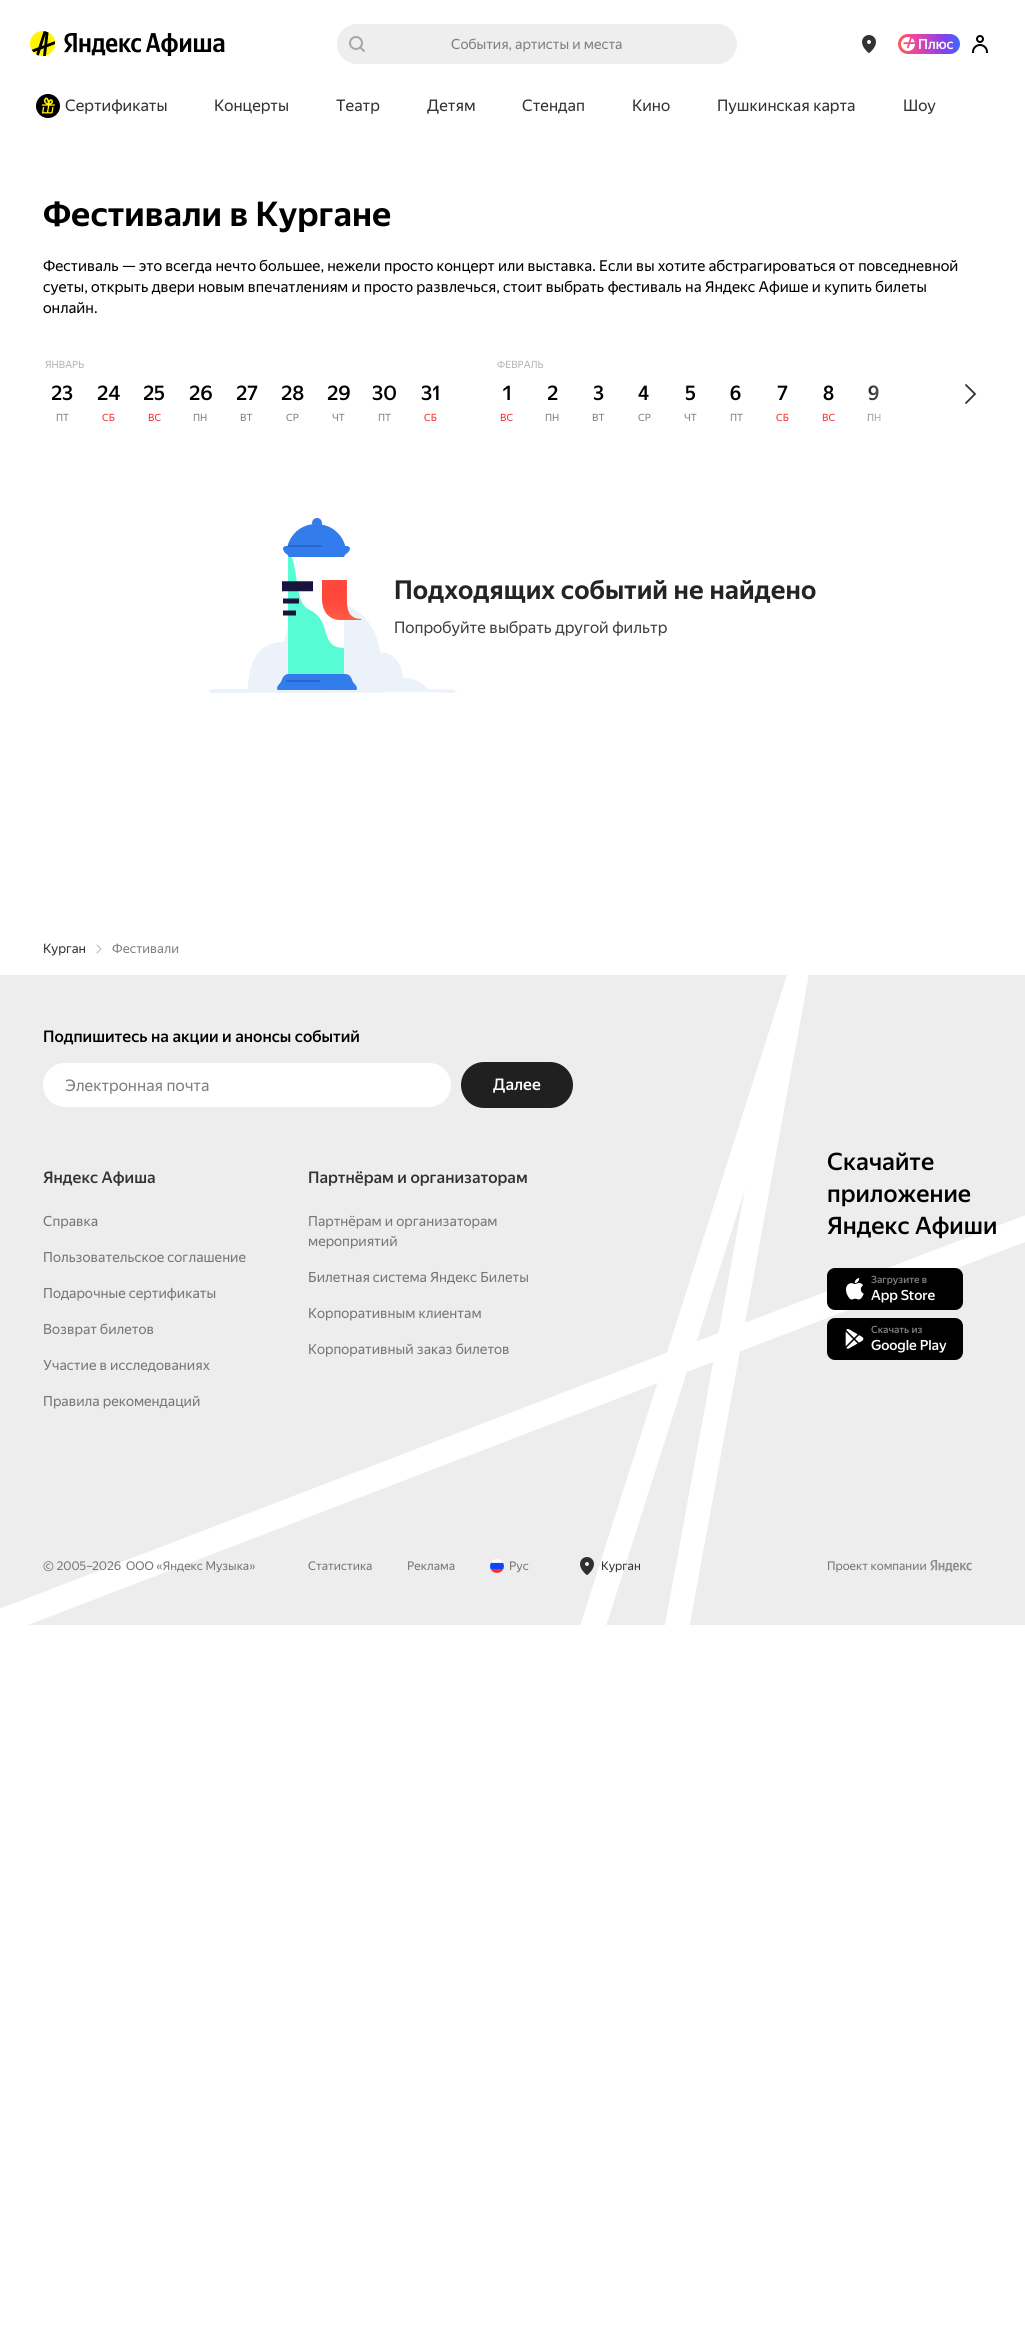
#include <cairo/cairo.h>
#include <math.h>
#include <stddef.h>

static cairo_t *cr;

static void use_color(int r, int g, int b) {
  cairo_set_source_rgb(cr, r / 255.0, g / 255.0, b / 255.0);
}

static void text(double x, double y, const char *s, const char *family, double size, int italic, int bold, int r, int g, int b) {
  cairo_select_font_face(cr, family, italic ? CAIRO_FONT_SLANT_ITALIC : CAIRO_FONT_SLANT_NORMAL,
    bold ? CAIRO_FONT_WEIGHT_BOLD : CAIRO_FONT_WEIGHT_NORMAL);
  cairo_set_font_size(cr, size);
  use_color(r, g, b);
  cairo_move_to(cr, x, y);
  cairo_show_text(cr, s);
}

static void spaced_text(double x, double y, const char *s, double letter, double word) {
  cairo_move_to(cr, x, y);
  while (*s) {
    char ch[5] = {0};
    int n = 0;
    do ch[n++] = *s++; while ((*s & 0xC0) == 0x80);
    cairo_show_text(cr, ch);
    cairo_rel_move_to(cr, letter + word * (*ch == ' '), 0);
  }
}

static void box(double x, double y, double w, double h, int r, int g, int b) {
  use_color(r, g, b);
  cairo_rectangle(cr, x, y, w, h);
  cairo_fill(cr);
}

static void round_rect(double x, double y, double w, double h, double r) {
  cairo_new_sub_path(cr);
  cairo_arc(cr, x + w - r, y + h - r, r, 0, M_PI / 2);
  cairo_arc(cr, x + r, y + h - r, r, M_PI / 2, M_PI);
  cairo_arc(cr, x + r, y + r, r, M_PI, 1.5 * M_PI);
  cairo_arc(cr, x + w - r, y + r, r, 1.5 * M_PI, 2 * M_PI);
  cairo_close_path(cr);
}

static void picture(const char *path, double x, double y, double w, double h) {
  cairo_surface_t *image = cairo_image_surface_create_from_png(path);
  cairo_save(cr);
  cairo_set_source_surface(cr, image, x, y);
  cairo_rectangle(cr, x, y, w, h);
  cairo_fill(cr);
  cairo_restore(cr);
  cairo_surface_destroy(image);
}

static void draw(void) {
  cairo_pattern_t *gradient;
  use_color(255, 255, 255);
  cairo_paint(cr);
  picture("img_01.png", 30, 31, 26, 26);
  picture("img_02.png", 64, 33, 161, 23);
  picture("img_03.png", 349, 36, 16, 16);
  cairo_set_source_rgba(cr, 0, 0, 0, 0.07);
  round_rect(337, 24, 400, 40, 20);
  cairo_fill(cr);
  picture("img_04.png", 862, 35, 14, 18);
  gradient = cairo_pattern_create_linear(898, 44, 960, 44);
  cairo_pattern_add_color_stop_rgba(gradient, 0, 1, 0.361, 0.302, 1);
  cairo_pattern_add_color_stop_rgba(gradient, 0.27, 0.922, 0.275, 0.624, 1);
  cairo_pattern_add_color_stop_rgba(gradient, 0.75, 0.514, 0.255, 0.937, 1);
  cairo_pattern_add_color_stop_rgba(gradient, 1, 0.247, 0.408, 0.976, 1);
  cairo_set_source(cr, gradient);
  cairo_pattern_destroy(gradient);
  round_rect(898, 34, 62, 20, 10);
  cairo_fill(cr);
  picture("img_05.png", 901, 37, 14, 14);
  picture("img_06.png", 919, 38, 34, 12);
  picture("img_07.png", 972, 35, 16, 18);
  picture("img_08.png", 36, 94, 24, 24);
  cairo_new_path(cr);
  cairo_move_to(cr, 966, 403);
  cairo_line_to(cr, 975, 394);
  cairo_line_to(cr, 966, 385);
  use_color(51, 51, 51);
  cairo_set_line_width(cr, 1.8);
  cairo_set_line_cap(cr, CAIRO_LINE_CAP_ROUND);
  cairo_stroke(cr);
  picture("img_09.png", 209, 518, 248, 175);
  cairo_new_path(cr);
  cairo_move_to(cr, 97, 945);
  cairo_line_to(cr, 101, 949);
  cairo_line_to(cr, 97, 953);
  use_color(179, 179, 179);
  cairo_set_line_width(cr, 1);
  cairo_set_line_join(cr, CAIRO_LINE_JOIN_ROUND);
  cairo_stroke(cr);
  box(0, 975, 1025, 650, 237, 237, 237);
  use_color(255, 255, 255);
  round_rect(44, 1064, 406, 42, 21);
  cairo_fill_preserve(cr);
  cairo_set_line_width(cr, 2);
  cairo_set_line_cap(cr, CAIRO_LINE_CAP_BUTT);
  cairo_set_line_join(cr, CAIRO_LINE_JOIN_MITER);
  cairo_stroke(cr);
  use_color(32, 32, 32);
  round_rect(461, 1062, 112, 46, 23);
  cairo_fill(cr);
  cairo_save(cr);
  cairo_rectangle(cr, 0, 975, 1025, 650);
  cairo_clip(cr);
  use_color(255, 255, 255);
  cairo_set_fill_rule(cr, CAIRO_FILL_RULE_EVEN_ODD);
  cairo_new_path(cr);
  cairo_move_to(cr, 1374, 1108);
  cairo_line_to(cr, -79, 1666);
  cairo_line_to(cr, -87, 1642);
  cairo_line_to(cr, 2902, 495);
  cairo_line_to(cr, 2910, 519);
  cairo_close_path(cr);
  cairo_fill(cr);
  cairo_restore(cr);
  picture("img_10.png", 490, 1559, 14, 14);
  cairo_save(cr);
  cairo_rectangle(cr, 562, 975, 247, 650);
  cairo_clip(cr);
  use_color(255, 255, 255);
  cairo_set_fill_rule(cr, CAIRO_FILL_RULE_EVEN_ODD);
  cairo_new_path(cr);
  cairo_move_to(cr, 643, 1745);
  cairo_line_to(cr, 778, 1009);
  cairo_line_to(cr, 787, 974);
  cairo_line_to(cr, 809, 974);
  cairo_line_to(cr, 667, 1749);
  cairo_close_path(cr);
  cairo_fill(cr);
  cairo_new_path(cr);
  cairo_move_to(cr, 536, 1765);
  cairo_line_to(cr, 786, 978);
  cairo_line_to(cr, 808, 978);
  cairo_line_to(cr, 800, 1016);
  cairo_line_to(cr, 560, 1771);
  cairo_close_path(cr);
  cairo_fill(cr);
  cairo_restore(cr);
  picture("img_11.png", 580, 1557, 14, 18);
  use_color(0, 0, 0);
  round_rect(827, 1268, 136, 42, 8);
  cairo_fill(cr);
  picture("img_12.png", 846, 1278, 18, 22);
  round_rect(827, 1318, 136, 42, 8);
  cairo_fill(cr);
  picture("img_13.png", 845, 1329, 19, 20);
  picture("img_14.png", 930, 1560, 42, 12);
  text(451, 49, "События, артисты и места", "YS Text", 14, 0, 0, 128, 128, 128);
  text(65, 111, "Сертификаты", "YS Text", 16, 0, 0, 51, 51, 51);
  text(214, 111, "Концерты", "YS Text", 16, 0, 0, 51, 51, 51);
  text(336, 111, "Театр", "YS Text", 16, 0, 0, 51, 51, 51);
  text(427, 111, "Детям", "YS Text", 16, 0, 0, 51, 51, 51);
  text(522, 111, "Стендап", "YS Text", 16, 0, 0, 51, 51, 51);
  text(632, 111, "Кино", "YS Text", 16, 0, 0, 51, 51, 51);
  text(717, 111, "Пушкинская карта", "YS Text", 16, 0, 0, 51, 51, 51);
  text(903, 111, "Шоу", "YS Text", 16, 0, 0, 51, 51, 51);
  text(43, 226, "Фестивали в Кургане", "YS Text", 34, 0, 1, 0, 0, 0);
  text(43, 271, "Фестиваль — это всегда нечто большее, нежели просто концерт или выставка. Если вы хотите абстрагироваться от повседневной", "YS Text", 15, 0, 0, 0, 0, 0);
  text(43, 292, "суеты, открыть двери новым впечатлениям и просто развлечься, стоит выбрать фестиваль на Яндекс Афише и купить билеты", "YS Text", 15, 0, 0, 0, 0, 0);
  text(43, 313, "онлайн.", "YS Text", 15, 0, 0, 0, 0, 0);
  text(45, 368, "ЯНВАРЬ", "YS Text", 10, 0, 0, 179, 179, 179);
  text(51, 400, "23", "YS Text Medium", 20, 0, 0, 0, 0, 0);
  text(56, 421, "ПТ", "YS Text", 10, 0, 0, 128, 128, 128);
  text(97, 400, "24", "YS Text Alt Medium", 20, 0, 0, 0, 0, 0);
  text(102, 421, "СБ", "YS Text", 10, 0, 0, 247, 47, 47);
  text(143, 400, "25", "YS Text Medium", 20, 0, 0, 0, 0, 0);
  text(148, 421, "ВС", "YS Text", 10, 0, 0, 247, 47, 47);
  text(189, 400, "26", "YS Text Alt Medium", 20, 0, 0, 0, 0, 0);
  text(193, 421, "ПН", "YS Text", 10, 0, 0, 128, 128, 128);
  text(236, 400, "27", "YS Text Medium", 20, 0, 0, 0, 0, 0);
  text(240, 421, "ВТ", "YS Text", 10, 0, 0, 128, 128, 128);
  text(281, 400, "28", "YS Text Alt Medium", 20, 0, 0, 0, 0, 0);
  text(286, 421, "СР", "YS Text", 10, 0, 0, 128, 128, 128);
  text(327, 400, "29", "YS Text Alt Medium", 20, 0, 0, 0, 0, 0);
  text(332, 421, "ЧТ", "YS Text", 10, 0, 0, 128, 128, 128);
  text(372, 400, "30", "YS Text Alt Medium", 20, 0, 0, 0, 0, 0);
  text(378, 421, "ПТ", "YS Text", 10, 0, 0, 128, 128, 128);
  text(421, 400, "31", "YS Text Alt Medium", 20, 0, 0, 0, 0, 0);
  text(424, 421, "СБ", "YS Text", 10, 0, 0, 247, 47, 47);
  text(497, 368, "ФЕВРАЛЬ", "YS Text", 10, 0, 0, 179, 179, 179);
  text(502, 400, "1", "YS Text Medium", 20, 0, 0, 0, 0, 0);
  text(500, 421, "ВС", "YS Text", 10, 0, 0, 247, 47, 47);
  text(547, 400, "2", "YS Text Medium", 20, 0, 0, 0, 0, 0);
  text(545, 421, "ПН", "YS Text", 10, 0, 0, 128, 128, 128);
  text(593, 400, "3", "YS Text Medium", 20, 0, 0, 0, 0, 0);
  text(592, 421, "ВТ", "YS Text", 10, 0, 0, 128, 128, 128);
  text(638, 400, "4", "YS Text Medium", 20, 0, 0, 0, 0, 0);
  text(638, 421, "СР", "YS Text", 10, 0, 0, 128, 128, 128);
  text(685, 400, "5", "YS Text Medium", 20, 0, 0, 0, 0, 0);
  text(684, 421, "ЧТ", "YS Text", 10, 0, 0, 128, 128, 128);
  text(730, 400, "6", "YS Text Medium", 20, 0, 0, 0, 0, 0);
  text(730, 421, "ПТ", "YS Text", 10, 0, 0, 128, 128, 128);
  text(777, 400, "7", "YS Text Medium", 20, 0, 0, 0, 0, 0);
  text(776, 421, "СБ", "YS Text", 10, 0, 0, 247, 47, 47);
  text(823, 400, "8", "YS Text Medium", 20, 0, 0, 0, 0, 0);
  text(822, 421, "ВС", "YS Text", 10, 0, 0, 247, 47, 47);
  text(868, 400, "9", "YS Text Medium", 20, 0, 0, 0, 0, 0);
  text(867, 421, "ПН", "YS Text", 10, 0, 0, 128, 128, 128);
  gradient = cairo_pattern_create_linear(959, 406, 859, 406);
  cairo_pattern_add_color_stop_rgba(gradient, 0, 1, 1, 1, 1);
  cairo_pattern_add_color_stop_rgba(gradient, 0.39, 1, 1, 1, 1);
  cairo_pattern_add_color_stop_rgba(gradient, 1, 1, 1, 1, 0);
  cairo_set_source(cr, gradient);
  cairo_pattern_destroy(gradient);
  cairo_rectangle(cr, 868, 385, 13, 36);
  cairo_fill(cr);
  text(394, 599, "Подходящих событий не найдено", "YS Text", 26, 0, 1, 36, 36, 36);
  text(394, 633, "Попробуйте выбрать другой фильтр", "YS Text", 16, 0, 0, 65, 65, 65);
  text(43, 953, "Курган", "YS Text", 13, 0, 0, 51, 51, 51);
  text(112, 953, "Фестивали", "YS Text", 13, 0, 0, 128, 128, 128);
  text(43, 1042, "Подпишитесь на акции и анонсы событий", "YS Text Medium", 16, 0, 0, 0, 0, 0);
  text(65, 1091, "Электронная почта", "YS Text", 16, 0, 0, 128, 128, 128);
  text(493, 1090, "Далее", "YS Text Medium", 16, 0, 0, 255, 255, 255);
  text(43, 1183, "Яндекс Афиша", "YS Text Medium", 16, 0, 0, 51, 51, 51);
  text(43, 1226, "Справка", "YS Text", 14, 0, 0, 119, 119, 119);
  text(43, 1262, "Пользовательское соглашение", "YS Text", 14, 0, 0, 119, 119, 119);
  text(43, 1298, "Подарочные сертификаты", "YS Text", 14, 0, 0, 119, 119, 119);
  text(43, 1334, "Возврат билетов", "YS Text", 14, 0, 0, 119, 119, 119);
  text(43, 1370, "Участие в исследованиях", "YS Text", 14, 0, 0, 119, 119, 119);
  text(43, 1406, "Правила рекомендаций", "YS Text", 14, 0, 0, 119, 119, 119);
  text(308, 1183, "Партнёрам и организаторам", "YS Text Medium", 16, 0, 0, 51, 51, 51);
  text(308, 1226, "Партнёрам и организаторам", "YS Text", 14, 0, 0, 119, 119, 119);
  text(308, 1246, "мероприятий", "YS Text", 14, 0, 0, 119, 119, 119);
  text(308, 1282, "Билетная система Яндекс Билеты", "YS Text", 14, 0, 0, 119, 119, 119);
  text(308, 1318, "Корпоративным клиентам", "YS Text", 14, 0, 0, 119, 119, 119);
  text(308, 1354, "Корпоративный заказ билетов", "YS Text", 14, 0, 0, 119, 119, 119);
  text(43, 1570, "© 2005–", "YS Text Alt", 12, 0, 0, 119, 119, 119);
  text(92, 1570, "2026", "YS Text Alt", 12, 0, 0, 119, 119, 119);
  text(126, 1570, "ООО «Яндекс Музыка»", "YS Text", 12, 0, 0, 119, 119, 119);
  text(308, 1570, "Статистика", "YS Text", 12, 0, 0, 119, 119, 119);
  text(407, 1570, "Реклама", "YS Text", 12, 0, 0, 119, 119, 119);
  text(509, 1570, "Рус", "YS Text", 12, 0, 0, 119, 119, 119);
  text(601, 1570, "Курган", "YS Text", 12, 0, 0, 51, 51, 51);
  text(827, 1170, "Скачайте", "YS Text Medium", 24, 0, 0, 0, 0, 0);
  text(827, 1202, "приложение", "YS Text Medium", 24, 0, 0, 0, 0, 0);
  text(827, 1234, "Яндекс Афиши", "YS Text Medium", 24, 0, 0, 0, 0, 0);
  text(871, 1283, "Загрузите в", "YS Text Medium", 10, 0, 0, 128, 128, 128);
  cairo_set_font_size(cr, 14);
  use_color(255, 255, 255);
  spaced_text(871, 1300, "App Store", -0.1, 0);
  text(871, 1333, "Скачать из", "YS Text Medium", 10, 0, 0, 128, 128, 128);
  cairo_set_font_size(cr, 14);
  use_color(255, 255, 255);
  spaced_text(871, 1350, "Google Play", -0.1, 0);
  text(827, 1570, "Проект компании", "YS Text", 12, 0, 0, 119, 119, 119);
}

int main(void) {
  cairo_surface_t *surface = cairo_image_surface_create(CAIRO_FORMAT_RGB24, 1025, 2325);
  cr = cairo_create(surface);
  cairo_font_options_t *options = cairo_font_options_create();
  cairo_font_options_set_hint_metrics(options, CAIRO_HINT_METRICS_OFF);
  cairo_font_options_set_hint_style(options, CAIRO_HINT_STYLE_NONE);
  cairo_set_font_options(cr, options);
  cairo_set_miter_limit(cr, 4);
  draw();
  cairo_surface_write_to_png(surface, "out.png");
  cairo_font_options_destroy(options);
  cairo_destroy(cr);
  cairo_surface_destroy(surface);
  return 0;
}
